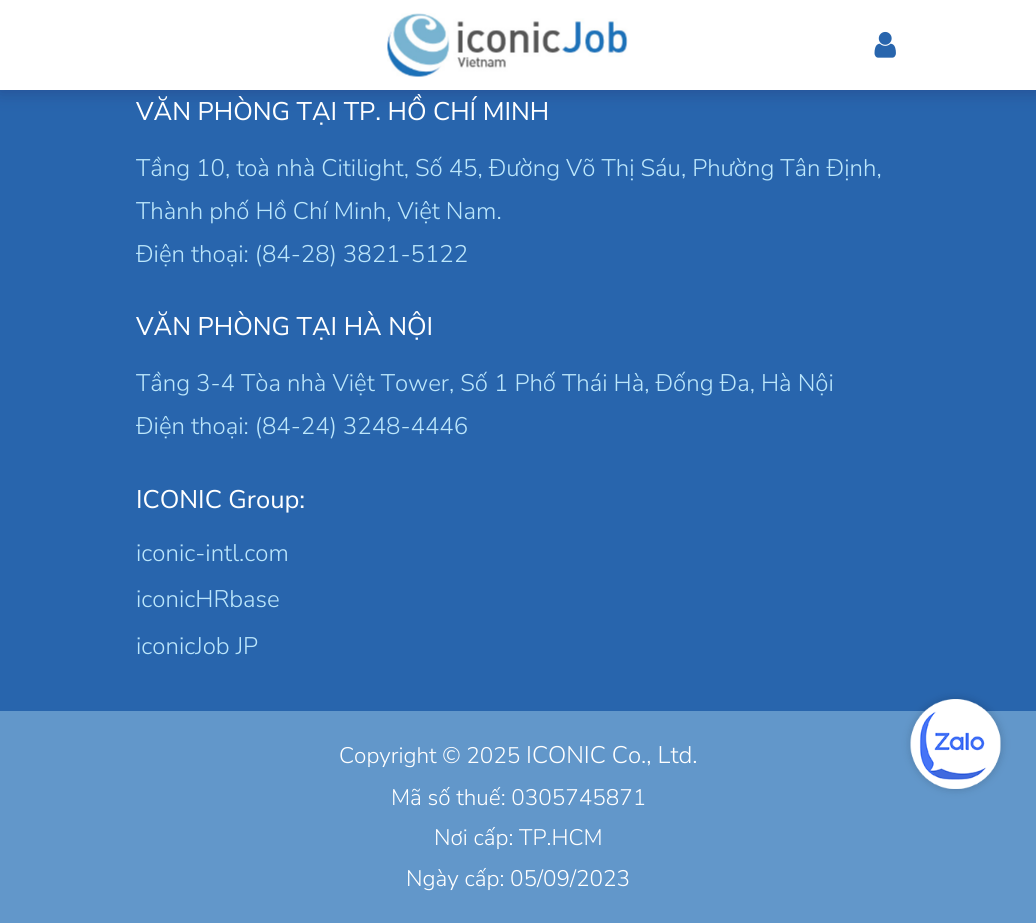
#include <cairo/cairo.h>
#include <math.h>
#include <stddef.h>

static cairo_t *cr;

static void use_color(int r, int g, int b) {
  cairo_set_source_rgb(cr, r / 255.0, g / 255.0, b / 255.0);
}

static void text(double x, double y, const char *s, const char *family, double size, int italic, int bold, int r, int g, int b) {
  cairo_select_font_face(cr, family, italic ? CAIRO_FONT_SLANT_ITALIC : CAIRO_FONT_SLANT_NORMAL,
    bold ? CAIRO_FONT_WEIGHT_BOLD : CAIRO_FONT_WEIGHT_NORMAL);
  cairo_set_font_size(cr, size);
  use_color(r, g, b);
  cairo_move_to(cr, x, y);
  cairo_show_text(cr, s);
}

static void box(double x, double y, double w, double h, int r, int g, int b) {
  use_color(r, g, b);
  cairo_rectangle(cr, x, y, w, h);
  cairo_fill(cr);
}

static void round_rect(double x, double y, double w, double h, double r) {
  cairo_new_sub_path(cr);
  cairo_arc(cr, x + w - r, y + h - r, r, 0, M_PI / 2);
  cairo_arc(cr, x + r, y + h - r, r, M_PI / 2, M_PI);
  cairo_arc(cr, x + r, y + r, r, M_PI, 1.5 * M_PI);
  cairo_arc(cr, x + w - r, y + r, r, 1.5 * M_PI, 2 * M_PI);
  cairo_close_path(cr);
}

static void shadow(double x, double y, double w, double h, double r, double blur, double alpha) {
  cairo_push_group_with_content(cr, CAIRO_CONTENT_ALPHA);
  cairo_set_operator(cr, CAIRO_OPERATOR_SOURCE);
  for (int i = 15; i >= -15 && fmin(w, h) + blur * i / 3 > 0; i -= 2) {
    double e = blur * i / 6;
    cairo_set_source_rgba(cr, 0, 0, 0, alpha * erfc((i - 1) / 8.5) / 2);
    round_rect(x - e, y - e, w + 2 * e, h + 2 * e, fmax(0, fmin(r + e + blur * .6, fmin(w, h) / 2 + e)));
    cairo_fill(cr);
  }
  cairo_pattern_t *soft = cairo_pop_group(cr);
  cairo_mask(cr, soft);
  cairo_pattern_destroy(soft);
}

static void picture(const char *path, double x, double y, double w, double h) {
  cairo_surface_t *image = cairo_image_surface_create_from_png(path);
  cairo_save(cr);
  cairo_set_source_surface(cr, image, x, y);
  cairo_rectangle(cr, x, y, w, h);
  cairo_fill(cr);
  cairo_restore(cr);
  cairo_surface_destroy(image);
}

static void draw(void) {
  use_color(40, 101, 173);
  cairo_paint(cr);
  use_color(31, 41, 100);
  shadow(0, 2, 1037, 90, 0, 9, 0.36);
  box(0, 0, 1036, 90, 255, 255, 255);
  picture("img_01.png", 387, 13, 241, 64);
  picture("img_02.png", 874, 31, 22, 27);
  box(0, 711, 1036, 212, 98, 151, 202);
  use_color(0, 0, 0);
  shadow(911, 699, 90, 90, 45, 4.5, 0.2);
  picture("img_03.png", 910, 699, 91, 90);
  text(136, 120, "VĂN PHÒNG TẠI TP. HỒ CHÍ MINH", "Nunito Sans", 25.5, 0, 0, 255, 255, 255);
  text(136, 176, "Tầng 10, toà nhà Citilight, Số 45, Đường Võ Thị Sáu, Phường Tân Định,", "Nunito Sans Light", 24, 0, 0, 187, 230, 251);
  text(136, 219, "Thành phố Hồ Chí Minh, Việt Nam.", "Nunito Sans Light", 24, 0, 0, 187, 230, 251);
  text(136, 262, "Điện thoại: (84-28) 3821-5122", "Nunito Sans Light", 24, 0, 0, 187, 230, 251);
  text(136, 335, "VĂN PHÒNG TẠI HÀ NỘI", "Nunito Sans", 25.5, 0, 0, 255, 255, 255);
  text(136, 391, "Tầng 3-4 Tòa nhà Việt Tower, Số 1 Phố Thái Hà, Đống Đa, Hà Nội", "Nunito Sans Light", 24, 0, 0, 187, 230, 251);
  text(136, 434, "Điện thoại: (84-24) 3248-4446", "Nunito Sans Light", 24, 0, 0, 187, 230, 251);
  text(136, 508, "ICONIC Group:", "Nunito Sans", 25.5, 0, 0, 255, 255, 255);
  text(136, 561, "iconic-intl.com", "Nunito Sans Light", 24, 0, 0, 187, 230, 251);
  text(136, 607, "iconicHRbase", "Nunito Sans Light", 24, 0, 0, 187, 230, 251);
  text(136, 654, "iconicJob JP", "Nunito Sans Light", 24, 0, 0, 187, 230, 251);
  text(339, 763, "Copyright © 2025", "Nunito Sans Light", 22.5, 0, 0, 255, 255, 255);
  text(526, 763, "ICONIC Co., Ltd.", "Nunito Sans Light", 24, 0, 0, 255, 255, 255);
  text(391, 805, "Mã số thuế: 0305745871", "Nunito Sans Light", 22.5, 0, 0, 255, 255, 255);
  text(434, 845, "Nơi cấp: TP.HCM", "Nunito Sans Light", 22.5, 0, 0, 255, 255, 255);
  text(406, 886, "Ngày cấp: 05/09/2023", "Nunito Sans Light", 22.5, 0, 0, 255, 255, 255);
}

int main(void) {
  cairo_surface_t *surface = cairo_image_surface_create(CAIRO_FORMAT_RGB24, 1036, 923);
  cr = cairo_create(surface);
  cairo_font_options_t *options = cairo_font_options_create();
  cairo_font_options_set_hint_metrics(options, CAIRO_HINT_METRICS_OFF);
  cairo_font_options_set_hint_style(options, CAIRO_HINT_STYLE_NONE);
  cairo_set_font_options(cr, options);
  cairo_set_miter_limit(cr, 4);
  draw();
  cairo_surface_write_to_png(surface, "out.png");
  cairo_font_options_destroy(options);
  cairo_destroy(cr);
  cairo_surface_destroy(surface);
  return 0;
}
